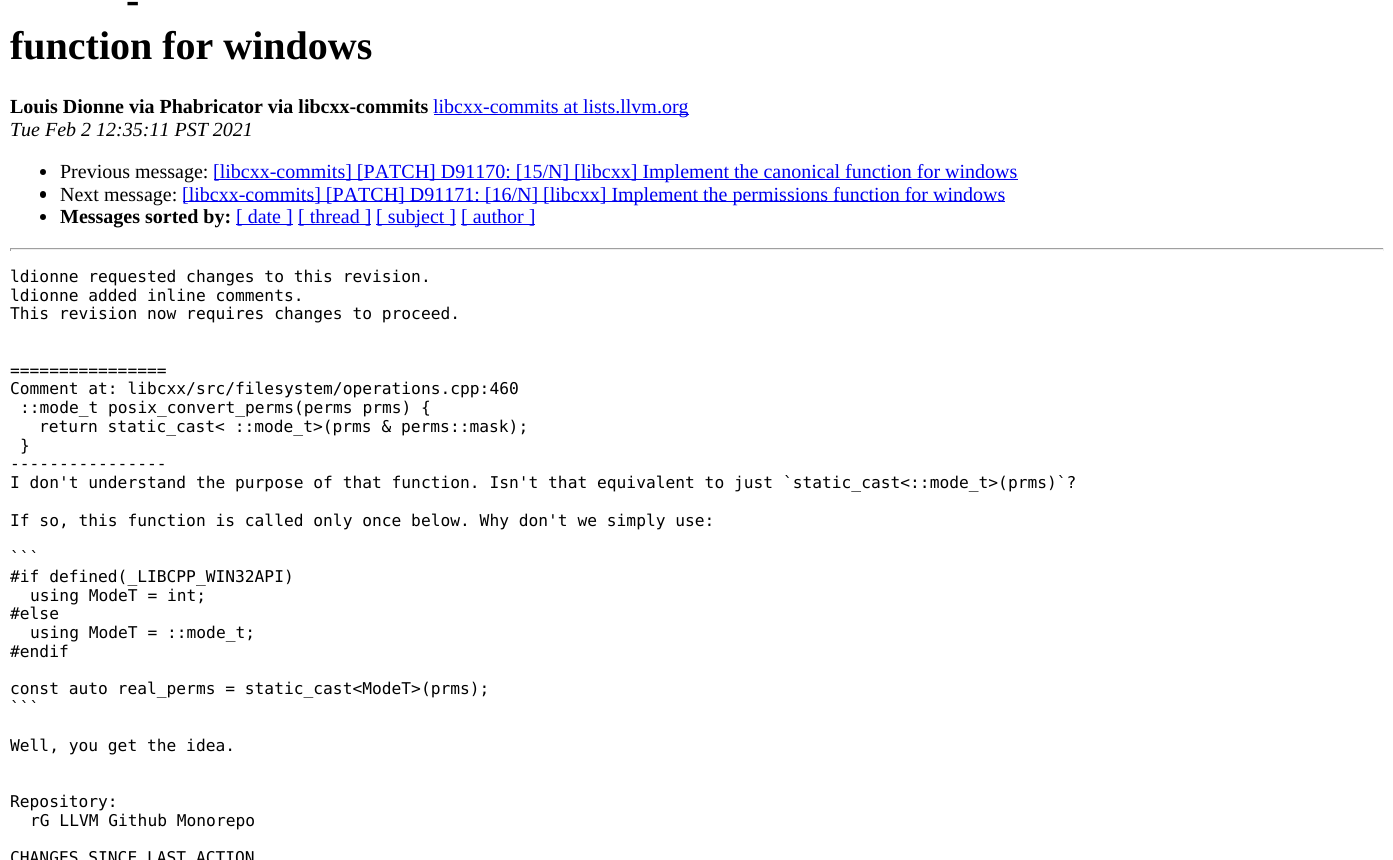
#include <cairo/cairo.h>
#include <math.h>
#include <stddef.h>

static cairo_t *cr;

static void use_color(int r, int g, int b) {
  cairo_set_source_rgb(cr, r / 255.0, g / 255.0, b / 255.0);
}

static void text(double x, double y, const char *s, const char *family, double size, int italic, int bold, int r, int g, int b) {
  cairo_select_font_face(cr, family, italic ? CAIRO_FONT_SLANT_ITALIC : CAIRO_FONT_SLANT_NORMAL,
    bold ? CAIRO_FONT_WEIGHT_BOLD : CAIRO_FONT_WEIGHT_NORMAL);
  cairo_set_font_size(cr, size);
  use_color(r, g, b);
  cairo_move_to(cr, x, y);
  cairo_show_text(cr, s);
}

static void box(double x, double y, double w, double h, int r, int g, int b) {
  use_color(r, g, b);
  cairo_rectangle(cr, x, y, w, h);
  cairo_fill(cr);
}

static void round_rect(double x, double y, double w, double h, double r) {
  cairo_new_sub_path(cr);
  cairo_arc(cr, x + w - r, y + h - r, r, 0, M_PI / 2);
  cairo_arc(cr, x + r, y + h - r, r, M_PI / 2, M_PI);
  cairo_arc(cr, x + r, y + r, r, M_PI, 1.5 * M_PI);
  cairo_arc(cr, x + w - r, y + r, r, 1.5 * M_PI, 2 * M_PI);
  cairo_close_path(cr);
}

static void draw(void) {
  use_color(255, 255, 255);
  cairo_paint(cr);
  box(434, 114, 255, 1, 0, 0, 238);
  use_color(0, 0, 0);
  cairo_arc(cr, 43, 172, 3, 0, 2 * M_PI);
  cairo_fill(cr);
  box(214, 179, 804, 1, 0, 0, 238);
  use_color(0, 0, 0);
  round_rect(40, 191, 6, 7, 3);
  cairo_fill(cr);
  box(183, 201, 822, 1, 0, 0, 238);
  use_color(0, 0, 0);
  cairo_arc(cr, 43, 217, 3, 0, 2 * M_PI);
  cairo_fill(cr);
  box(236, 224, 57, 1, 0, 0, 238);
  box(298, 224, 73, 1, 0, 0, 238);
  box(376, 224, 80, 1, 0, 0, 238);
  box(461, 224, 74, 1, 0, 0, 238);
  box(10, 248, 1374, 1, 159, 159, 159);
  box(1383, 248, 1, 3, 238, 238, 238);
  box(10, 249, 1374, 1, 238, 238, 238);
  box(10, 248, 1, 3, 159, 159, 159);
  text(126, 13, "-", "Liberation Serif", 40, 0, 1, 0, 0, 0);
  text(10, 59, "function for windows", "Liberation Serif", 40, 0, 1, 0, 0, 0);
  text(10, 113, "Louis Dionne via Phabricator via libcxx-commits", "Liberation Serif", 20, 0, 1, 0, 0, 0);
  text(433, 113, "libcxx-commits at lists.llvm.org", "Liberation Serif", 20, 0, 0, 0, 0, 238);
  text(10, 136, "Tue Feb 2 12:35:11 PST 2021", "Liberation Serif", 20, 1, 0, 0, 0, 0);
  text(60, 178, "Previous message:", "Liberation Serif", 20, 0, 0, 0, 0, 0);
  text(213, 178, "[libcxx-commits] [PATCH] D91170: [15/N] [libcxx] Implement the canonical function for windows", "Liberation Serif", 20, 0, 0, 0, 0, 238);
  text(60, 201, "Next message:", "Liberation Serif", 20, 0, 0, 0, 0, 0);
  text(182, 201, "[libcxx-commits] [PATCH] D91171: [16/N] [libcxx] Implement the permissions function for windows", "Liberation Serif", 20, 0, 0, 0, 0, 238);
  text(60, 223, "Messages sorted by:", "Liberation Serif", 20, 0, 1, 0, 0, 0);
  text(236, 223, "[ date ]", "Liberation Serif", 20, 0, 0, 0, 0, 238);
  text(298, 223, "[ thread ]", "Liberation Serif", 20, 0, 0, 0, 0, 238);
  text(376, 223, "[ subject ]", "Liberation Serif", 20, 0, 0, 0, 0, 238);
  text(461, 223, "[ author ]", "Liberation Serif", 20, 0, 0, 0, 0, 238);
  text(10, 282, "ldionne requested changes to this revision.", "DejaVu Sans Mono", 16.25, 0, 0, 0, 0, 0);
  text(10, 301, "ldionne added inline comments.", "DejaVu Sans Mono", 16.25, 0, 0, 0, 0, 0);
  text(10, 319, "This revision now requires changes to proceed.", "DejaVu Sans Mono", 16.25, 0, 0, 0, 0, 0);
  text(10, 376, "================", "DejaVu Sans Mono", 16.25, 0, 0, 0, 0, 0);
  text(10, 394, "Comment at: libcxx/src/filesystem/operations.cpp:460", "DejaVu Sans Mono", 16.25, 0, 0, 0, 0, 0);
  text(20, 413, "::mode_t posix_convert_perms(perms prms) {", "DejaVu Sans Mono", 16.25, 0, 0, 0, 0, 0);
  text(39, 432, "return static_cast< ::mode_t>(prms & perms::mask);", "DejaVu Sans Mono", 16.25, 0, 0, 0, 0, 0);
  text(20, 451, "}", "DejaVu Sans Mono", 16.25, 0, 0, 0, 0, 0);
  text(10, 469, "----------------", "DejaVu Sans Mono", 16.25, 0, 0, 0, 0, 0);
  text(10, 488, "I don't understand the purpose of that function. Isn't that equivalent to just `static_cast<::mode_t>(prms)`?", "DejaVu Sans Mono", 16.25, 0, 0, 0, 0, 0);
  text(10, 526, "If so, this function is called only once below. Why don't we simply use:", "DejaVu Sans Mono", 16.25, 0, 0, 0, 0, 0);
  text(10, 563, "```", "DejaVu Sans Mono", 16.25, 0, 0, 0, 0, 0);
  text(10, 582, "#if defined(_LIBCPP_WIN32API)", "DejaVu Sans Mono", 16.25, 0, 0, 0, 0, 0);
  text(30, 601, "using ModeT = int;", "DejaVu Sans Mono", 16.25, 0, 0, 0, 0, 0);
  text(10, 619, "#else", "DejaVu Sans Mono", 16.25, 0, 0, 0, 0, 0);
  text(30, 638, "using ModeT = ::mode_t;", "DejaVu Sans Mono", 16.25, 0, 0, 0, 0, 0);
  text(10, 657, "#endif", "DejaVu Sans Mono", 16.25, 0, 0, 0, 0, 0);
  text(10, 694, "const auto real_perms = static_cast<ModeT>(prms);", "DejaVu Sans Mono", 16.25, 0, 0, 0, 0, 0);
  text(10, 713, "```", "DejaVu Sans Mono", 16.25, 0, 0, 0, 0, 0);
  text(10, 751, "Well, you get the idea.", "DejaVu Sans Mono", 16.25, 0, 0, 0, 0, 0);
  text(10, 807, "Repository:", "DejaVu Sans Mono", 16.25, 0, 0, 0, 0, 0);
  text(30, 826, "rG LLVM Github Monorepo", "DejaVu Sans Mono", 16.25, 0, 0, 0, 0, 0);
  text(10, 863, "CHANGES SINCE LAST ACTION", "DejaVu Sans Mono", 16.25, 0, 0, 0, 0, 0);
}

int main(void) {
  cairo_surface_t *surface = cairo_image_surface_create(CAIRO_FORMAT_RGB24, 1393, 860);
  cr = cairo_create(surface);
  cairo_font_options_t *options = cairo_font_options_create();
  cairo_font_options_set_hint_metrics(options, CAIRO_HINT_METRICS_OFF);
  cairo_font_options_set_hint_style(options, CAIRO_HINT_STYLE_NONE);
  cairo_set_font_options(cr, options);
  cairo_set_miter_limit(cr, 4);
  draw();
  cairo_surface_write_to_png(surface, "out.png");
  cairo_font_options_destroy(options);
  cairo_destroy(cr);
  cairo_surface_destroy(surface);
  return 0;
}
